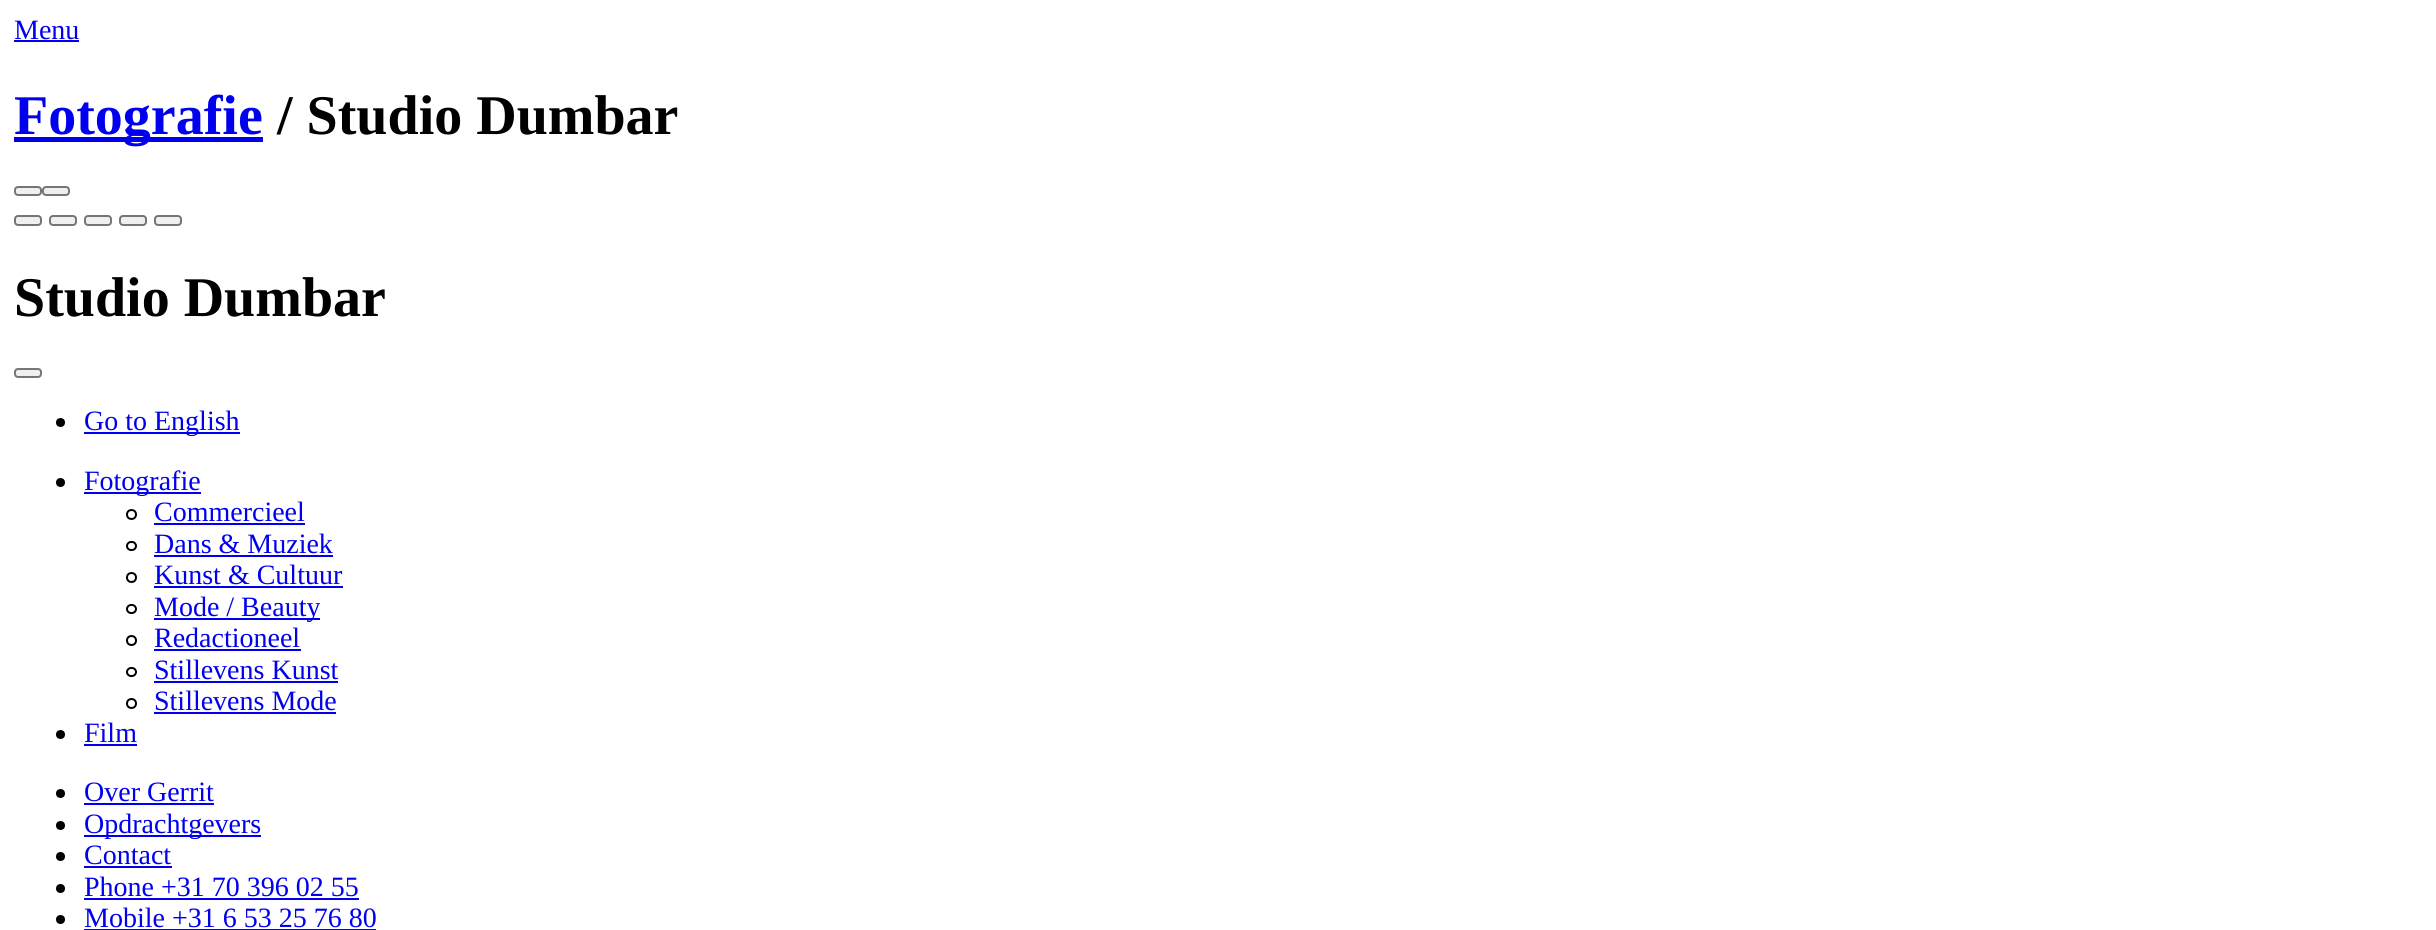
#include <cairo/cairo.h>
#include <math.h>
#include <stddef.h>

static cairo_t *cr;

static void use_color(int r, int g, int b) {
  cairo_set_source_rgb(cr, r / 255.0, g / 255.0, b / 255.0);
}

static void text(double x, double y, const char *s, const char *family, double size, int italic, int bold, int r, int g, int b) {
  cairo_select_font_face(cr, family, italic ? CAIRO_FONT_SLANT_ITALIC : CAIRO_FONT_SLANT_NORMAL,
    bold ? CAIRO_FONT_WEIGHT_BOLD : CAIRO_FONT_WEIGHT_NORMAL);
  cairo_set_font_size(cr, size);
  use_color(r, g, b);
  cairo_move_to(cr, x, y);
  cairo_show_text(cr, s);
}

static void box(double x, double y, double w, double h, int r, int g, int b) {
  use_color(r, g, b);
  cairo_rectangle(cr, x, y, w, h);
  cairo_fill(cr);
}

static void round_rect(double x, double y, double w, double h, double r) {
  cairo_new_sub_path(cr);
  cairo_arc(cr, x + w - r, y + h - r, r, 0, M_PI / 2);
  cairo_arc(cr, x + r, y + h - r, r, M_PI / 2, M_PI);
  cairo_arc(cr, x + r, y + r, r, M_PI, 1.5 * M_PI);
  cairo_arc(cr, x + w - r, y + r, r, 1.5 * M_PI, 2 * M_PI);
  cairo_close_path(cr);
}

static void draw(void) {
  use_color(255, 255, 255);
  cairo_paint(cr);
  box(14, 40, 65, 2, 0, 0, 238);
  box(14, 137, 249, 5, 0, 0, 238);
  use_color(239, 239, 239);
  round_rect(15, 187, 26, 8, 3);
  cairo_fill_preserve(cr);
  use_color(118, 118, 118);
  cairo_stroke(cr);
  use_color(239, 239, 239);
  round_rect(43, 187, 26, 8, 3);
  cairo_fill_preserve(cr);
  use_color(118, 118, 118);
  cairo_stroke(cr);
  use_color(239, 239, 239);
  round_rect(15, 216, 26, 9, 3);
  cairo_fill_preserve(cr);
  use_color(118, 118, 118);
  cairo_stroke(cr);
  use_color(239, 239, 239);
  round_rect(50, 216, 26, 9, 3);
  cairo_fill_preserve(cr);
  use_color(118, 118, 118);
  cairo_stroke(cr);
  use_color(239, 239, 239);
  round_rect(85, 216, 26, 9, 3);
  cairo_fill_preserve(cr);
  use_color(118, 118, 118);
  cairo_stroke(cr);
  use_color(239, 239, 239);
  round_rect(120, 216, 26, 9, 3);
  cairo_fill_preserve(cr);
  use_color(118, 118, 118);
  cairo_stroke(cr);
  use_color(239, 239, 239);
  round_rect(155, 216, 26, 9, 3);
  cairo_fill_preserve(cr);
  use_color(118, 118, 118);
  cairo_stroke(cr);
  use_color(239, 239, 239);
  round_rect(15, 369, 26, 8, 3);
  cairo_fill_preserve(cr);
  use_color(118, 118, 118);
  cairo_stroke(cr);
  use_color(0, 0, 0);
  cairo_arc(cr, 60.5, 422.5, 4.5, 0, 2 * M_PI);
  cairo_fill(cr);
  box(84, 432, 156, 2, 0, 0, 238);
  use_color(0, 0, 0);
  cairo_arc(cr, 60.5, 482.5, 4.5, 0, 2 * M_PI);
  cairo_fill(cr);
  box(84, 492, 117, 2, 0, 0, 238);
  cairo_arc(cr, 131.5, 514.5, 4.5, 0, 2 * M_PI);
  use_color(0, 0, 0);
  cairo_stroke(cr);
  box(154, 523, 151, 2, 0, 0, 238);
  round_rect(127, 542, 9, 8, 4);
  use_color(0, 0, 0);
  cairo_stroke(cr);
  box(154, 555, 179, 2, 0, 0, 238);
  cairo_arc(cr, 131.5, 577.5, 4.5, 0, 2 * M_PI);
  use_color(0, 0, 0);
  cairo_stroke(cr);
  box(154, 586, 189, 2, 0, 0, 238);
  round_rect(127, 605, 9, 8, 4);
  use_color(0, 0, 0);
  cairo_stroke(cr);
  box(154, 618, 166, 2, 0, 0, 238);
  cairo_arc(cr, 131.5, 640.5, 4.5, 0, 2 * M_PI);
  use_color(0, 0, 0);
  cairo_stroke(cr);
  box(154, 649, 147, 2, 0, 0, 238);
  round_rect(127, 668, 9, 8, 4);
  use_color(0, 0, 0);
  cairo_stroke(cr);
  box(154, 681, 184, 2, 0, 0, 238);
  cairo_arc(cr, 131.5, 703.5, 4.5, 0, 2 * M_PI);
  use_color(0, 0, 0);
  cairo_stroke(cr);
  box(154, 712, 182, 2, 0, 0, 238);
  use_color(0, 0, 0);
  cairo_arc(cr, 60.5, 734.5, 4.5, 0, 2 * M_PI);
  cairo_fill(cr);
  box(84, 744, 53, 2, 0, 0, 238);
  use_color(0, 0, 0);
  cairo_arc(cr, 60.5, 793.5, 4.5, 0, 2 * M_PI);
  cairo_fill(cr);
  box(84, 803, 130, 2, 0, 0, 238);
  use_color(0, 0, 0);
  cairo_arc(cr, 60.5, 825.5, 4.5, 0, 2 * M_PI);
  cairo_fill(cr);
  box(84, 835, 177, 2, 0, 0, 238);
  use_color(0, 0, 0);
  cairo_arc(cr, 60.5, 856.5, 4.5, 0, 2 * M_PI);
  cairo_fill(cr);
  box(84, 866, 88, 2, 0, 0, 238);
  use_color(0, 0, 0);
  cairo_arc(cr, 60.5, 888.5, 4.5, 0, 2 * M_PI);
  cairo_fill(cr);
  box(84, 898, 275, 2, 0, 0, 238);
  use_color(0, 0, 0);
  cairo_arc(cr, 60.5, 919.5, 4.5, 0, 2 * M_PI);
  cairo_fill(cr);
  box(84, 929, 292, 1, 0, 0, 238);
  text(14, 39, "Menu", "Liberation Serif", 28, 0, 0, 0, 0, 238);
  text(14, 134, "Fotografie", "Liberation Serif", 56, 0, 1, 0, 0, 238);
  text(277, 134, "/ Studio Dumbar", "Liberation Serif", 56, 0, 1, 0, 0, 0);
  text(14, 316, "Studio Dumbar", "Liberation Serif", 56, 0, 1, 0, 0, 0);
  text(84, 430, "Go to English", "Liberation Serif", 28, 0, 0, 0, 0, 238);
  text(84, 490, "Fotografie", "Liberation Serif", 28, 0, 0, 0, 0, 238);
  text(154, 521, "Commercieel", "Liberation Serif", 28, 0, 0, 0, 0, 238);
  text(154, 553, "Dans & Muziek", "Liberation Serif", 28, 0, 0, 0, 0, 238);
  text(154, 584, "Kunst & Cultuur", "Liberation Serif", 28, 0, 0, 0, 0, 238);
  text(154, 616, "Mode / Beauty", "Liberation Serif", 28, 0, 0, 0, 0, 238);
  text(154, 647, "Redactioneel", "Liberation Serif", 28, 0, 0, 0, 0, 238);
  text(154, 679, "Stillevens Kunst", "Liberation Serif", 28, 0, 0, 0, 0, 238);
  text(154, 710, "Stillevens Mode", "Liberation Serif", 28, 0, 0, 0, 0, 238);
  text(84, 742, "Film", "Liberation Serif", 28, 0, 0, 0, 0, 238);
  text(84, 801, "Over Gerrit", "Liberation Serif", 28, 0, 0, 0, 0, 238);
  text(84, 833, "Opdrachtgevers", "Liberation Serif", 28, 0, 0, 0, 0, 238);
  text(84, 864, "Contact", "Liberation Serif", 28, 0, 0, 0, 0, 238);
  text(84, 896, "Phone +31 70 396 02 55", "Liberation Serif", 28, 0, 0, 0, 0, 238);
  text(84, 927, "Mobile +31 6 53 25 76 80", "Liberation Serif", 28, 0, 0, 0, 0, 238);
}

int main(void) {
  cairo_surface_t *surface = cairo_image_surface_create(CAIRO_FORMAT_RGB24, 2436, 930);
  cr = cairo_create(surface);
  cairo_font_options_t *options = cairo_font_options_create();
  cairo_font_options_set_hint_metrics(options, CAIRO_HINT_METRICS_OFF);
  cairo_font_options_set_hint_style(options, CAIRO_HINT_STYLE_NONE);
  cairo_set_font_options(cr, options);
  cairo_set_miter_limit(cr, 4);
  draw();
  cairo_surface_write_to_png(surface, "out.png");
  cairo_font_options_destroy(options);
  cairo_destroy(cr);
  cairo_surface_destroy(surface);
  return 0;
}
